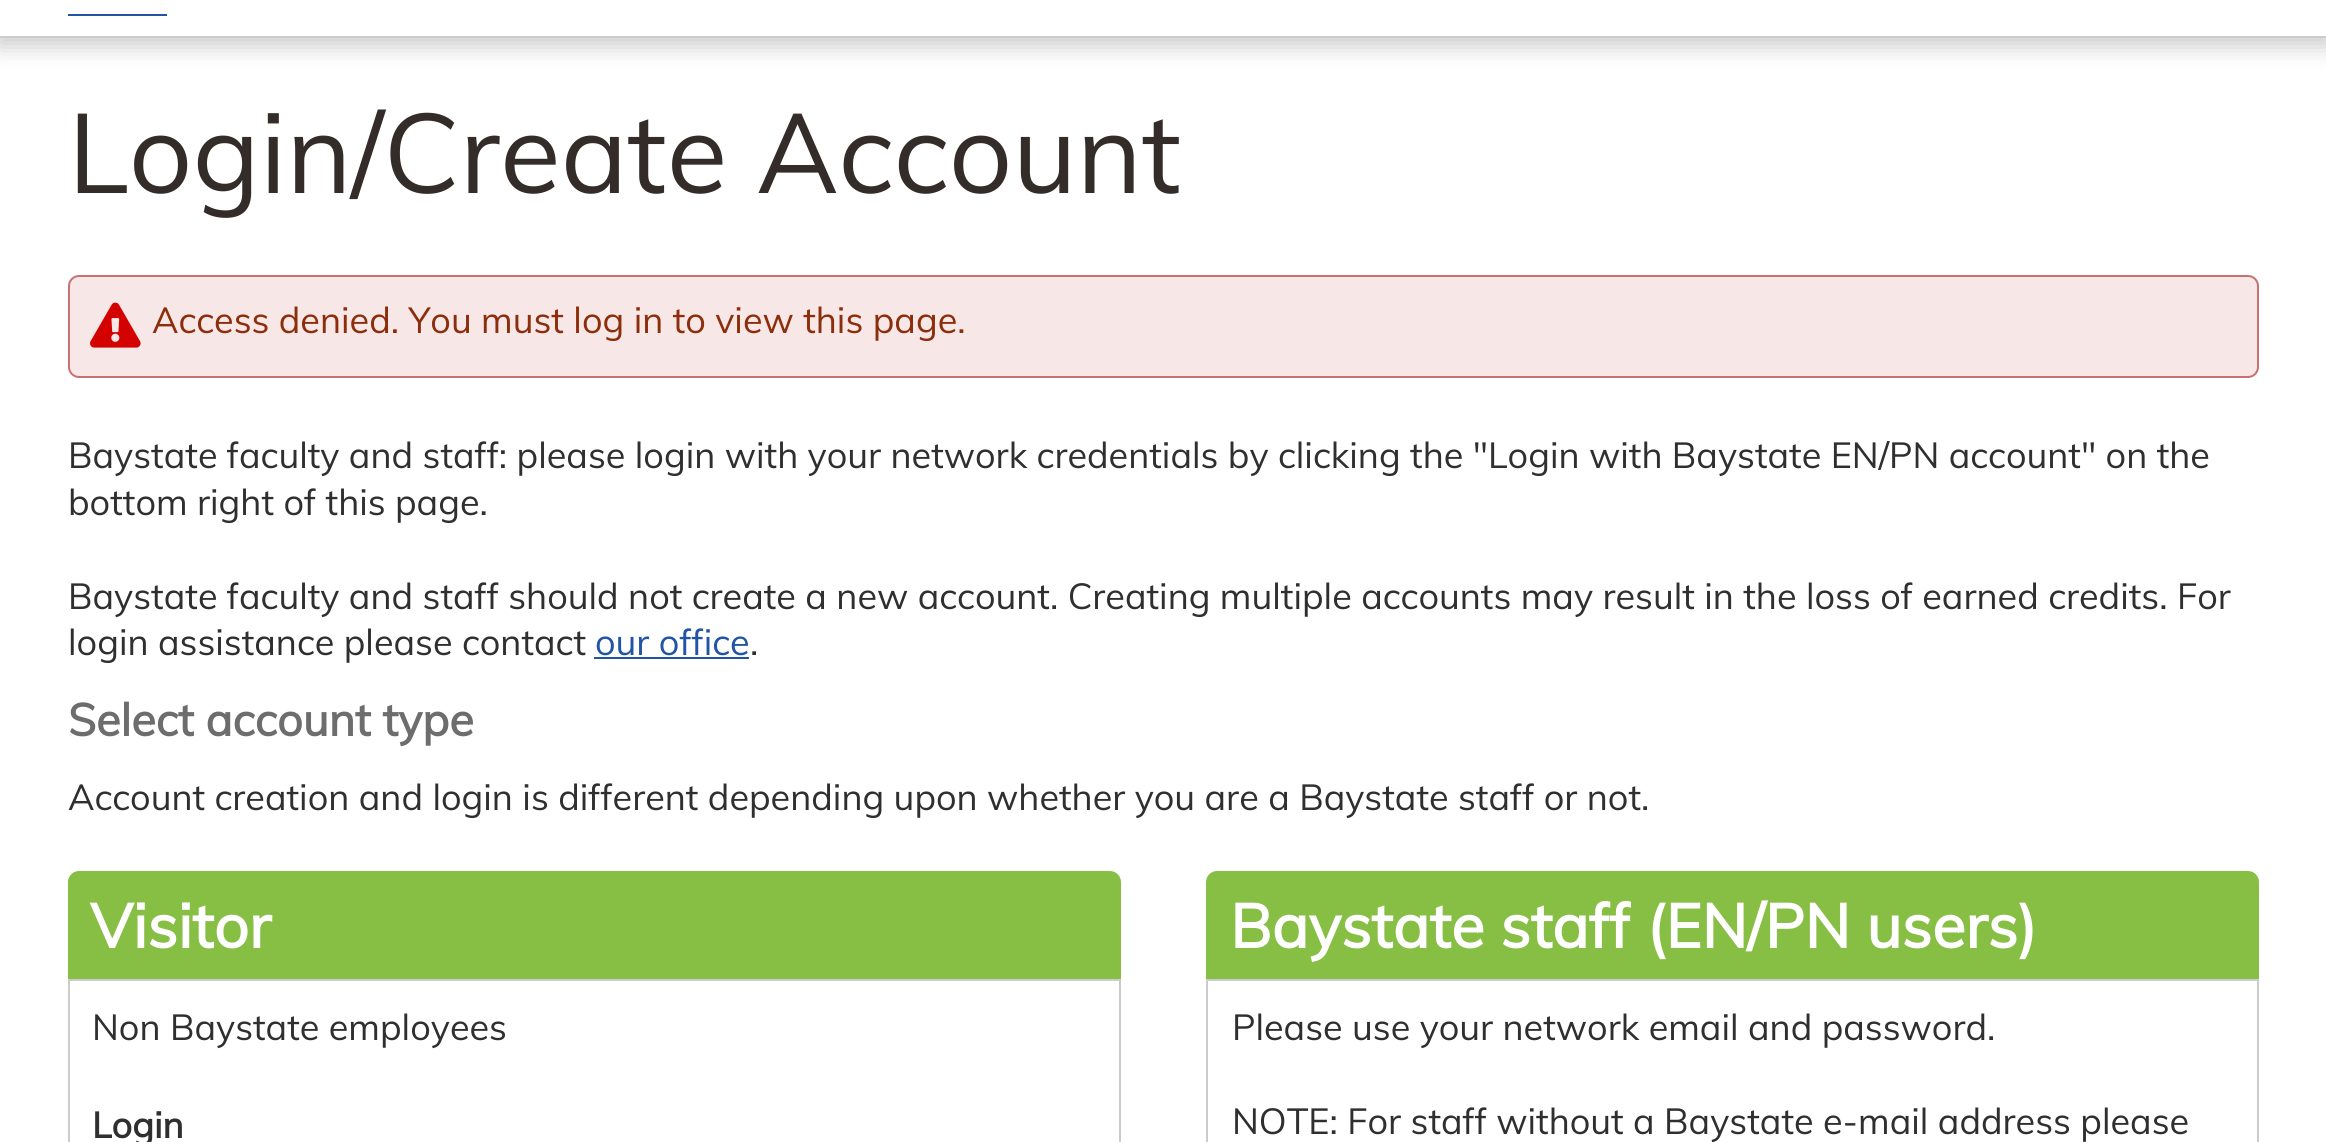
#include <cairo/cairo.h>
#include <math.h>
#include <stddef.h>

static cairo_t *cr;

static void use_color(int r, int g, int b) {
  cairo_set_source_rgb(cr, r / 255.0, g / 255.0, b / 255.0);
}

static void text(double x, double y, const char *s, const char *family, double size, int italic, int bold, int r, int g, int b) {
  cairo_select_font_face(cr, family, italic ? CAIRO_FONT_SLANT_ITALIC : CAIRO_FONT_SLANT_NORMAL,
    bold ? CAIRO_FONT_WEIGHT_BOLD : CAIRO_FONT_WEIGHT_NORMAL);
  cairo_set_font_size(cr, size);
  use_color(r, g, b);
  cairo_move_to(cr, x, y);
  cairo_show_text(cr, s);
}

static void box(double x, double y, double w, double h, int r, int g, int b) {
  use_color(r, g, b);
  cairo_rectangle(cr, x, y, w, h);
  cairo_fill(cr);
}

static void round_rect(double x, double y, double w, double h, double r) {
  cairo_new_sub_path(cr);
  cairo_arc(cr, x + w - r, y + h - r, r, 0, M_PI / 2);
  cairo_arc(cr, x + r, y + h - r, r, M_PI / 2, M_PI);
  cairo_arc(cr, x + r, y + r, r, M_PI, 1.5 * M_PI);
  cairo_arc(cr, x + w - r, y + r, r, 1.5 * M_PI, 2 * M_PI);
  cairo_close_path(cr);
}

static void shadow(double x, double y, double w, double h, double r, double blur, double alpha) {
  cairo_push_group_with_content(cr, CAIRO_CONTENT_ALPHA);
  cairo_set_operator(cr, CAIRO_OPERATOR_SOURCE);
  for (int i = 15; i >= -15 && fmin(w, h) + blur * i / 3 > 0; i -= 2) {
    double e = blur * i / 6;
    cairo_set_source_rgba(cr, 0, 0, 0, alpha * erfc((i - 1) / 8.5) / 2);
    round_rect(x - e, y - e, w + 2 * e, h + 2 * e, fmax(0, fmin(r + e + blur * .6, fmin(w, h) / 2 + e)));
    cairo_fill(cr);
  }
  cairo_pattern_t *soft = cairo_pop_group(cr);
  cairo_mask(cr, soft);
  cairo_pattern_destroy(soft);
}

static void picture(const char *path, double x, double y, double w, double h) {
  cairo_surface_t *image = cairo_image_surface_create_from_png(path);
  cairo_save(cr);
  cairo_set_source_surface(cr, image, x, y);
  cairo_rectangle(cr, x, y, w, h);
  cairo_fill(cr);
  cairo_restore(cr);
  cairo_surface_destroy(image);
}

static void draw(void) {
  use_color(255, 255, 255);
  cairo_paint(cr);
  use_color(0, 0, 0);
  shadow(-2, -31, 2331, 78, 0, 11, 0.2);
  box(0, 0, 2326, 36, 255, 255, 255);
  box(0, 36, 2326, 2, 204, 204, 204);
  box(68, 14, 99, 2, 33, 83, 167);
  use_color(247, 231, 231);
  round_rect(69, 276, 2189, 101, 10);
  cairo_fill_preserve(cr);
  use_color(200, 113, 113);
  cairo_stroke(cr);
  picture("img_01.png", 90, 302, 51, 46);
  box(594, 657, 155, 2, 33, 83, 167);
  use_color(135, 190, 68);
  cairo_new_path(cr);
  cairo_move_to(cr, 79, 871);
  cairo_line_to(cr, 1110, 871);
  cairo_curve_to(cr, 1116, 871, 1121, 876, 1121, 882);
  cairo_line_to(cr, 1121, 979);
  cairo_line_to(cr, 68, 979);
  cairo_line_to(cr, 68, 882);
  cairo_curve_to(cr, 68, 876, 73, 871, 79, 871);
  cairo_close_path(cr);
  cairo_fill(cr);
  cairo_rectangle(cr, 69, 980, 1051, 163);
  use_color(204, 204, 204);
  cairo_stroke(cr);
  use_color(135, 190, 68);
  cairo_new_path(cr);
  cairo_move_to(cr, 1217, 871);
  cairo_line_to(cr, 2248, 871);
  cairo_curve_to(cr, 2254, 871, 2259, 876, 2259, 882);
  cairo_line_to(cr, 2259, 979);
  cairo_line_to(cr, 1206, 979);
  cairo_line_to(cr, 1206, 882);
  cairo_curve_to(cr, 1206, 876, 1211, 871, 1217, 871);
  cairo_close_path(cr);
  cairo_fill(cr);
  cairo_rectangle(cr, 1207, 980, 1051, 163);
  use_color(204, 204, 204);
  cairo_stroke(cr);
  text(68, 193, "Login/Create Account", "Muli", 111.5, 0, 0, 52, 44, 41);
  text(152, 333, "Access denied. You must log in to view this page.", "Muli", 36, 0, 0, 140, 46, 11);
  text(68, 468, "Baystate faculty and staff: please login with your network credentials by clicking the \"Login with Baystate EN/PN account\" on the", "Muli", 36, 0, 0, 47, 47, 47);
  text(68, 515, "bottom right of this page.", "Muli", 36, 0, 0, 47, 47, 47);
  text(68, 609, "Baystate faculty and staff should not create a new account. Creating multiple accounts may result in the loss of earned credits. For", "Muli", 36, 0, 0, 47, 47, 47);
  text(68, 655, "login assistance please contact", "Muli", 36, 0, 0, 47, 47, 47);
  text(595, 655, "our office", "Muli", 36, 0, 0, 33, 83, 167);
  text(750, 655, ".", "Muli", 36, 0, 0, 47, 47, 47);
  text(68, 736, "Select account type", "Muli", 45, 0, 1, 109, 109, 109);
  text(68, 810, "Account creation and login is different depending upon whether you are a Baystate staff or not.", "Muli", 36, 0, 0, 47, 47, 47);
  text(90, 948, "Visitor", "Muli", 61.25, 0, 1, 255, 255, 255);
  text(92, 1040, "Non Baystate employees", "Muli", 36, 0, 0, 47, 47, 47);
  text(92, 1138, "Login", "Muli", 36, 0, 1, 47, 47, 47);
  text(1230, 948, "Baystate staff (EN/PN users)", "Muli", 61.25, 0, 1, 255, 255, 255);
  text(1232, 1040, "Please use your network email and password.", "Muli", 36, 0, 0, 47, 47, 47);
  text(1232, 1134, "NOTE: For staff without a Baystate e-mail address please", "Muli", 36, 0, 0, 47, 47, 47);
}

int main(void) {
  cairo_surface_t *surface = cairo_image_surface_create(CAIRO_FORMAT_RGB24, 2326, 1142);
  cr = cairo_create(surface);
  cairo_font_options_t *options = cairo_font_options_create();
  cairo_font_options_set_hint_metrics(options, CAIRO_HINT_METRICS_OFF);
  cairo_font_options_set_hint_style(options, CAIRO_HINT_STYLE_NONE);
  cairo_set_font_options(cr, options);
  cairo_set_miter_limit(cr, 4);
  draw();
  cairo_surface_write_to_png(surface, "out.png");
  cairo_font_options_destroy(options);
  cairo_destroy(cr);
  cairo_surface_destroy(surface);
  return 0;
}
